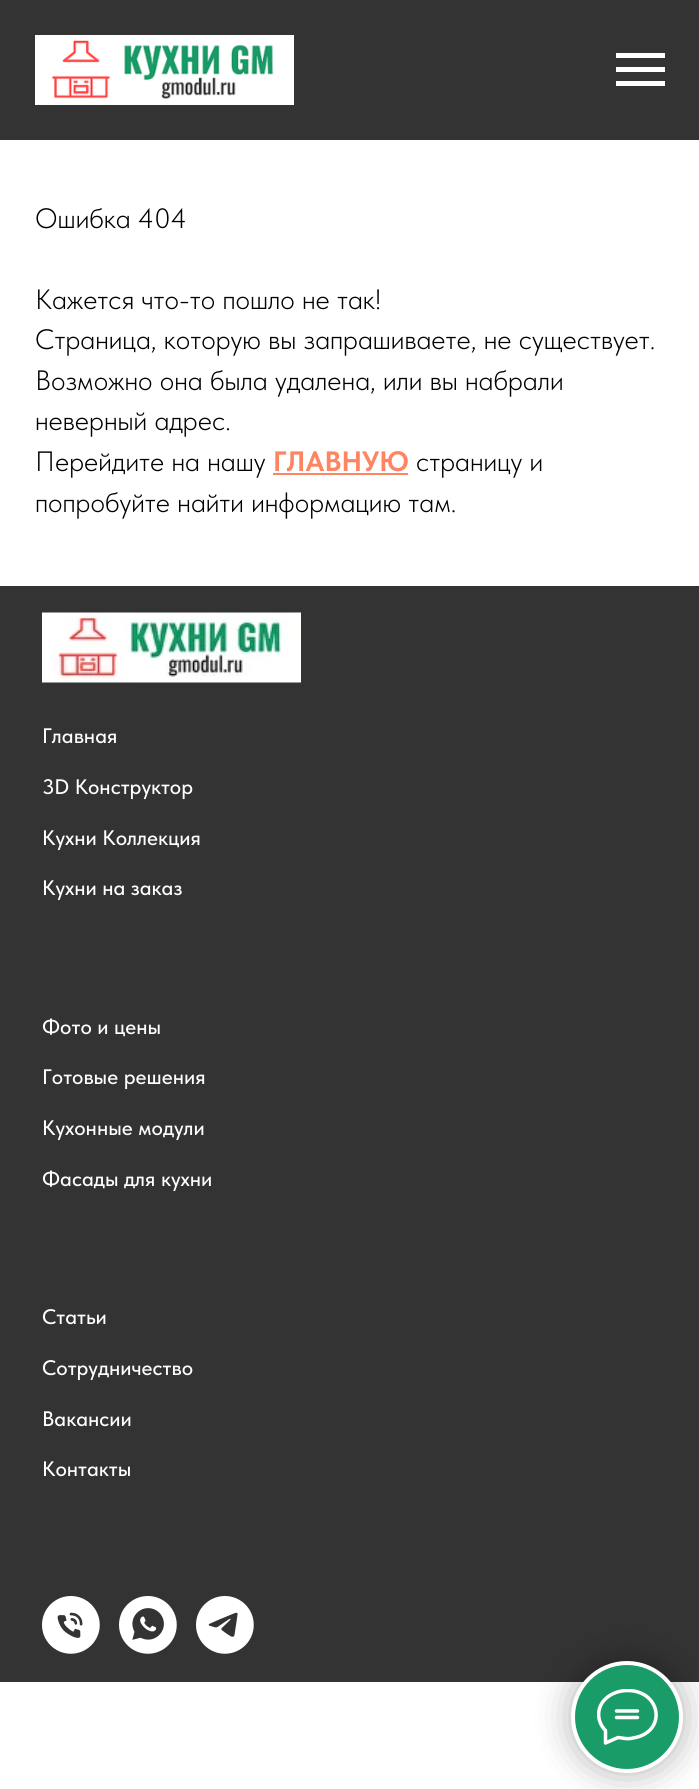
#include <cairo/cairo.h>
#include <math.h>
#include <stddef.h>

static cairo_t *cr;

static void use_color(int r, int g, int b) {
  cairo_set_source_rgb(cr, r / 255.0, g / 255.0, b / 255.0);
}

static void text(double x, double y, const char *s, const char *family, double size, int italic, int bold, int r, int g, int b) {
  cairo_select_font_face(cr, family, italic ? CAIRO_FONT_SLANT_ITALIC : CAIRO_FONT_SLANT_NORMAL,
    bold ? CAIRO_FONT_WEIGHT_BOLD : CAIRO_FONT_WEIGHT_NORMAL);
  cairo_set_font_size(cr, size);
  use_color(r, g, b);
  cairo_move_to(cr, x, y);
  cairo_show_text(cr, s);
}

static void box(double x, double y, double w, double h, int r, int g, int b) {
  use_color(r, g, b);
  cairo_rectangle(cr, x, y, w, h);
  cairo_fill(cr);
}

static void round_rect(double x, double y, double w, double h, double r) {
  cairo_new_sub_path(cr);
  cairo_arc(cr, x + w - r, y + h - r, r, 0, M_PI / 2);
  cairo_arc(cr, x + r, y + h - r, r, M_PI / 2, M_PI);
  cairo_arc(cr, x + r, y + r, r, M_PI, 1.5 * M_PI);
  cairo_arc(cr, x + w - r, y + r, r, 1.5 * M_PI, 2 * M_PI);
  cairo_close_path(cr);
}

static void shadow(double x, double y, double w, double h, double r, double blur, double alpha) {
  cairo_push_group_with_content(cr, CAIRO_CONTENT_ALPHA);
  cairo_set_operator(cr, CAIRO_OPERATOR_SOURCE);
  for (int i = 15; i >= -15 && fmin(w, h) + blur * i / 3 > 0; i -= 2) {
    double e = blur * i / 6;
    cairo_set_source_rgba(cr, 0, 0, 0, alpha * erfc((i - 1) / 8.5) / 2);
    round_rect(x - e, y - e, w + 2 * e, h + 2 * e, fmax(0, fmin(r + e + blur * .6, fmin(w, h) / 2 + e)));
    cairo_fill(cr);
  }
  cairo_pattern_t *soft = cairo_pop_group(cr);
  cairo_mask(cr, soft);
  cairo_pattern_destroy(soft);
}

static void picture(const char *path, double x, double y, double w, double h) {
  cairo_surface_t *image = cairo_image_surface_create_from_png(path);
  cairo_save(cr);
  cairo_set_source_surface(cr, image, x, y);
  cairo_rectangle(cr, x, y, w, h);
  cairo_fill(cr);
  cairo_restore(cr);
  cairo_surface_destroy(image);
}

static void draw(void) {
  use_color(255, 255, 255);
  cairo_paint(cr);
  box(0, 0, 699, 140, 51, 51, 51);
  picture("img_01.png", 35, 35, 259, 70);
  box(616, 53, 49, 5, 255, 255, 255);
  box(616, 67, 49, 5, 255, 255, 255);
  box(616, 81, 49, 5, 255, 255, 255);
  box(273, 473, 135, 2, 255, 133, 98);
  box(0, 586, 699, 1096, 51, 51, 51);
  picture("img_02.png", 42, 612, 259, 71);
  picture("img_03.png", 42, 1596, 58, 58);
  picture("img_04.png", 119, 1596, 58, 58);
  picture("img_05.png", 196, 1596, 58, 58);
  use_color(0, 0, 0);
  shadow(571, 1661, 112, 112, 56, 17.5, 0.3);
  use_color(25, 156, 104);
  cairo_arc(cr, 627, 1717, 54, 0, 2 * M_PI);
  cairo_fill_preserve(cr);
  use_color(255, 255, 255);
  cairo_set_line_width(cr, 4);
  cairo_stroke(cr);
  cairo_save(cr);
  cairo_rectangle(cr, 597, 1689, 61, 56);
  cairo_clip(cr);
  cairo_new_path(cr);
  cairo_move_to(cr, 616.5, 1711);
  cairo_line_to(cr, 637.5, 1711);
  cairo_move_to(cr, 616.5, 1717.5);
  cairo_line_to(cr, 637.5, 1717.5);
  cairo_move_to(cr, 605, 1730);
  cairo_curve_to(cr, 596, 1720.5, 596.5, 1706, 607, 1697.5);
  cairo_curve_to(cr, 612.5, 1693, 620, 1690.5, 627.5, 1690.5);
  cairo_curve_to(cr, 661.5, 1690.5, 667.5, 1732.5, 633, 1738);
  cairo_curve_to(cr, 627, 1739.5, 623.5, 1738, 618, 1737.5);
  cairo_line_to(cr, 605.5, 1743);
  cairo_line_to(cr, 605.5, 1730.5);
  cairo_close_path(cr);
  cairo_set_line_width(cr, 3.5);
  cairo_set_line_cap(cr, CAIRO_LINE_CAP_ROUND);
  cairo_set_line_join(cr, CAIRO_LINE_JOIN_ROUND);
  cairo_stroke(cr);
  cairo_restore(cr);
  text(35, 228, "Ошибка 404", "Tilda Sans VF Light", 28, 0, 0, 0, 0, 0);
  text(35, 309, "Кажется что-то пошло не так!", "Tilda Sans VF Light", 28, 0, 0, 0, 0, 0);
  text(35, 349, "Страница, которую вы запрашиваете, не существует.", "Tilda Sans VF Light", 28, 0, 0, 0, 0, 0);
  text(35, 390, "Возможно она была удалена, или вы набрали", "Tilda Sans VF Light", 28, 0, 0, 0, 0, 0);
  text(35, 430, "неверный адрес.", "Tilda Sans VF Light", 28, 0, 0, 0, 0, 0);
  text(35, 471, "Перейдите на нашу", "Tilda Sans VF Light", 28, 0, 0, 0, 0, 0);
  text(273, 471, "ГЛАВНУЮ", "Tilda Sans VF", 28, 0, 1, 255, 133, 98);
  text(416, 471, "страницу и", "Tilda Sans VF Light", 28, 0, 0, 0, 0, 0);
  text(35, 512, "попробуйте найти информацию там.", "Tilda Sans VF Light", 28, 0, 0, 0, 0, 0);
  text(42, 743, "Главная", "Tilda Sans VF Medium", 21, 0, 0, 255, 255, 255);
  text(42, 794, "3D Конструктор", "Tilda Sans VF Medium", 21, 0, 0, 255, 255, 255);
  text(42, 845, "Кухни Коллекция", "Tilda Sans VF Medium", 21, 0, 0, 255, 255, 255);
  text(42, 895, "Кухни на заказ", "Tilda Sans VF Medium", 21, 0, 0, 255, 255, 255);
  text(42, 1034, "Фото и цены", "Tilda Sans VF Medium", 21, 0, 0, 255, 255, 255);
  text(42, 1084, "Готовые решения", "Tilda Sans VF Medium", 21, 0, 0, 255, 255, 255);
  text(42, 1135, "Кухонные модули", "Tilda Sans VF Medium", 21, 0, 0, 255, 255, 255);
  text(42, 1186, "Фасады для кухни", "Tilda Sans VF Medium", 21, 0, 0, 255, 255, 255);
  text(42, 1324, "Статьи", "Tilda Sans VF Medium", 21, 0, 0, 255, 255, 255);
  text(42, 1375, "Сотрудничество", "Tilda Sans VF Medium", 21, 0, 0, 255, 255, 255);
  text(42, 1426, "Вакансии", "Tilda Sans VF Medium", 21, 0, 0, 255, 255, 255);
  text(42, 1476, "Контакты", "Tilda Sans VF Medium", 21, 0, 0, 255, 255, 255);
}

int main(void) {
  cairo_surface_t *surface = cairo_image_surface_create(CAIRO_FORMAT_RGB24, 699, 1789);
  cr = cairo_create(surface);
  cairo_font_options_t *options = cairo_font_options_create();
  cairo_font_options_set_hint_metrics(options, CAIRO_HINT_METRICS_OFF);
  cairo_font_options_set_hint_style(options, CAIRO_HINT_STYLE_NONE);
  cairo_set_font_options(cr, options);
  cairo_set_miter_limit(cr, 4);
  draw();
  cairo_surface_write_to_png(surface, "out.png");
  cairo_font_options_destroy(options);
  cairo_destroy(cr);
  cairo_surface_destroy(surface);
  return 0;
}
